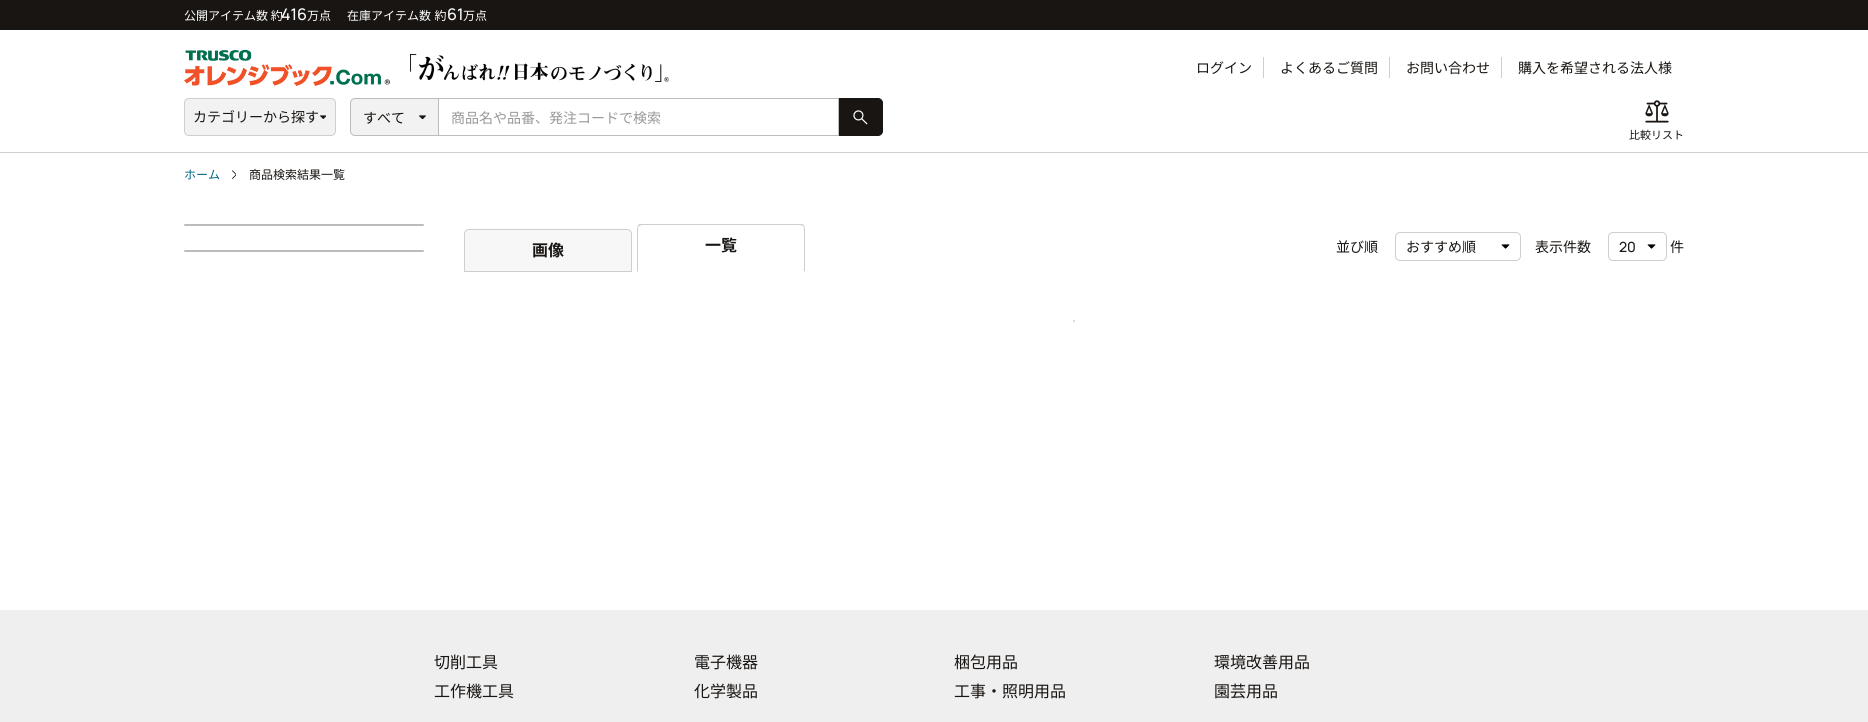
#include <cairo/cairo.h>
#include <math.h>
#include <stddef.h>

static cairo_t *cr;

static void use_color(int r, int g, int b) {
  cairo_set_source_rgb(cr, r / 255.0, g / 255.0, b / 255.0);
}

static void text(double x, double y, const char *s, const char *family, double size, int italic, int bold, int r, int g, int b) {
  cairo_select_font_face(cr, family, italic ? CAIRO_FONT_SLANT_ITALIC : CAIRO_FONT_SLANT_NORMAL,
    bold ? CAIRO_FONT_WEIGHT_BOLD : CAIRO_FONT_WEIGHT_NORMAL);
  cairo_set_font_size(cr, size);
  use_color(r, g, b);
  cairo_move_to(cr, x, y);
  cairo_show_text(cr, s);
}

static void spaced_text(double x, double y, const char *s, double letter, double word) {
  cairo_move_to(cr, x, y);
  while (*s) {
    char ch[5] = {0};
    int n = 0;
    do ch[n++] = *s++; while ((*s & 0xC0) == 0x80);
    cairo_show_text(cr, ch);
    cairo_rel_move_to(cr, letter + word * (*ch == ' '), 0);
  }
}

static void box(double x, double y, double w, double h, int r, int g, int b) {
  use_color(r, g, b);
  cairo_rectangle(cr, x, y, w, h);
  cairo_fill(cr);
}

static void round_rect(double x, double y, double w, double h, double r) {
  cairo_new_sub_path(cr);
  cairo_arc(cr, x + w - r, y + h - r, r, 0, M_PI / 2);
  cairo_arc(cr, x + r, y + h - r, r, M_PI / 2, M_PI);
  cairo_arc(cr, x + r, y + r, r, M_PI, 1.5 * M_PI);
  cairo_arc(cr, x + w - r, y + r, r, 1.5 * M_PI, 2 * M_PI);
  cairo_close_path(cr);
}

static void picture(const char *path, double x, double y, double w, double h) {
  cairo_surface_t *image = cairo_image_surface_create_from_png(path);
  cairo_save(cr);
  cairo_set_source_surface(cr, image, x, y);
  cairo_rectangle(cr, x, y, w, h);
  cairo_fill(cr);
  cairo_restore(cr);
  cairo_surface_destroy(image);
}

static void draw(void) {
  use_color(255, 255, 255);
  cairo_paint(cr);
  box(0, 0, 1868, 30, 25, 21, 18);
  picture("img_01.png", 184, 50, 206, 36);
  picture("img_02.png", 410, 54, 259, 28);
  box(1263, 57, 1, 21, 206, 206, 206);
  box(1389, 57, 1, 21, 206, 206, 206);
  box(1501, 57, 1, 21, 206, 206, 206);
  use_color(242, 242, 242);
  round_rect(184.5, 98.5, 151, 37, 4.5);
  cairo_fill_preserve(cr);
  use_color(206, 206, 206);
  cairo_set_line_width(cr, 1);
  cairo_stroke(cr);
  picture("img_03.png", 320, 115, 6, 4);
  use_color(242, 242, 242);
  cairo_new_path(cr);
  cairo_move_to(cr, 355, 98.5);
  cairo_line_to(cr, 438.5, 98.5);
  cairo_line_to(cr, 438.5, 135.5);
  cairo_line_to(cr, 355, 135.5);
  cairo_curve_to(cr, 352.5, 135.5, 350.5, 133.5, 350.5, 131);
  cairo_line_to(cr, 350.5, 103);
  cairo_curve_to(cr, 350.5, 100.5, 352.5, 98.5, 355, 98.5);
  cairo_close_path(cr);
  cairo_fill_preserve(cr);
  use_color(188, 188, 188);
  cairo_stroke(cr);
  picture("img_04.png", 419, 115, 7, 4);
  box(439, 98, 400, 1, 188, 188, 188);
  box(838, 98, 1, 38, 188, 188, 188);
  box(439, 135, 400, 1, 188, 188, 188);
  use_color(25, 21, 18);
  cairo_new_path(cr);
  cairo_move_to(cr, 839.5, 98.5);
  cairo_line_to(cr, 878, 98.5);
  cairo_curve_to(cr, 880.5, 98.5, 882.5, 100.5, 882.5, 103);
  cairo_line_to(cr, 882.5, 131);
  cairo_curve_to(cr, 882.5, 133.5, 880.5, 135.5, 878, 135.5);
  cairo_line_to(cr, 839.5, 135.5);
  cairo_close_path(cr);
  cairo_fill_preserve(cr);
  cairo_stroke(cr);
  picture("img_05.png", 853, 110, 15, 15);
  picture("img_06.png", 1645, 100, 24, 23);
  box(0, 152, 1868, 1, 206, 206, 206);
  picture("img_07.png", 232, 170, 4, 9);
  use_color(188, 188, 188);
  round_rect(184, 224, 240, 2, 1);
  cairo_fill(cr);
  round_rect(184, 250, 240, 2, 1);
  cairo_fill(cr);
  use_color(247, 247, 247);
  cairo_new_path(cr);
  cairo_move_to(cr, 469, 229.5);
  cairo_line_to(cr, 627, 229.5);
  cairo_curve_to(cr, 629.5, 229.5, 631.5, 231.5, 631.5, 234);
  cairo_line_to(cr, 631.5, 271.5);
  cairo_line_to(cr, 464.5, 271.5);
  cairo_line_to(cr, 464.5, 234);
  cairo_curve_to(cr, 464.5, 231.5, 466.5, 229.5, 469, 229.5);
  cairo_close_path(cr);
  cairo_fill_preserve(cr);
  use_color(206, 206, 206);
  cairo_stroke(cr);
  cairo_new_path(cr);
  cairo_move_to(cr, 642, 224);
  cairo_curve_to(cr, 640, 224, 639, 224, 638, 225);
  cairo_line_to(cr, 639, 226);
  cairo_curve_to(cr, 640, 226, 641, 225, 642, 225);
  cairo_line_to(cr, 800, 225);
  cairo_curve_to(cr, 801, 225, 802, 226, 803, 226);
  cairo_line_to(cr, 804, 225);
  cairo_curve_to(cr, 803, 224, 802, 224, 800, 224);
  cairo_close_path(cr);
  cairo_fill(cr);
  cairo_new_path(cr);
  cairo_move_to(cr, 805, 272);
  cairo_line_to(cr, 805, 229);
  cairo_curve_to(cr, 805, 228, 804, 226, 804, 225);
  cairo_line_to(cr, 803, 226);
  cairo_curve_to(cr, 804, 227, 804, 228, 804, 229);
  cairo_line_to(cr, 804, 271);
  cairo_close_path(cr);
  cairo_fill(cr);
  use_color(255, 255, 255);
  cairo_new_path(cr);
  cairo_move_to(cr, 805, 272);
  cairo_line_to(cr, 804, 271);
  cairo_line_to(cr, 638, 271);
  cairo_line_to(cr, 637, 272);
  cairo_close_path(cr);
  cairo_fill(cr);
  use_color(206, 206, 206);
  cairo_new_path(cr);
  cairo_move_to(cr, 637, 272);
  cairo_line_to(cr, 638, 271);
  cairo_line_to(cr, 638, 229);
  cairo_curve_to(cr, 638, 228, 638, 227, 639, 226);
  cairo_line_to(cr, 638, 225);
  cairo_curve_to(cr, 638, 226, 637, 228, 637, 229);
  cairo_close_path(cr);
  cairo_fill(cr);
  picture("img_08.png", 1501, 244, 9, 5);
  round_rect(1395.5, 232.5, 125, 28, 4.5);
  cairo_stroke(cr);
  picture("img_08.png", 1647, 244, 9, 5);
  round_rect(1608.5, 232.5, 58, 28, 4.5);
  cairo_stroke(cr);
  cairo_arc(cr, 1074, 321, 1, 0, 2 * M_PI);
  cairo_fill(cr);
  box(0, 610, 1868, 112, 239, 239, 239);
  text(184, 20, "公開アイテム数 約", "Noto Sans JP", 12, 0, 0, 255, 255, 255);
  text(281, 20, "416", "Manrope Medium", 16, 0, 0, 255, 255, 255);
  text(307, 20, "万点", "Noto Sans JP", 12, 0, 0, 255, 255, 255);
  spaced_text(347, 20, "在庫アイテム数  約", 0, -1);
  text(447, 20, "61", "Manrope Medium", 16, 0, 0, 255, 255, 255);
  text(463, 20, "万点", "Noto Sans JP", 12, 0, 0, 255, 255, 255);
  text(1196, 73, "ログイン", "Noto Sans JP", 14, 0, 0, 25, 21, 18);
  text(1280, 73, "よくあるご質問", "Noto Sans JP", 14, 0, 0, 25, 21, 18);
  text(1406, 73, "お問い合わせ", "Noto Sans JP", 14, 0, 0, 25, 21, 18);
  text(1518, 73, "購入を希望される法人様", "Noto Sans JP", 14, 0, 0, 25, 21, 18);
  text(193, 122, "カテゴリーから探す", "Noto Sans JP", 14, 0, 0, 25, 21, 18);
  text(363, 123, "すべて", "Noto Sans JP", 14, 0, 0, 25, 21, 18);
  text(451, 123, "商品名や品番、発注コードで検索", "Noto Sans JP", 14, 0, 0, 153, 153, 153);
  text(1629, 139, "比較リスト", "Noto Sans JP", 11, 0, 0, 25, 21, 18);
  text(184, 179, "ホーム", "Noto Sans JP", 12, 0, 0, 0, 99, 133);
  text(249, 179, "商品検索結果一覧", "Noto Sans JP", 12, 0, 0, 25, 21, 18);
  text(532, 256, "画像", "Noto Sans JP", 16, 0, 1, 25, 21, 18);
  text(705, 251, "一覧", "Noto Sans JP", 16, 0, 1, 25, 21, 18);
  text(1336, 252, "並び順", "Noto Sans JP", 14, 0, 0, 25, 21, 18);
  text(1406, 252, "おすすめ順", "Noto Sans JP", 14, 0, 0, 25, 21, 18);
  text(1535, 252, "表示件数", "Noto Sans JP", 14, 0, 0, 25, 21, 18);
  text(1619, 252, "20", "Manrope Medium", 14, 0, 0, 25, 21, 18);
  text(1670, 252, "件", "Noto Sans JP", 14, 0, 0, 25, 21, 18);
  text(434, 668, "切削工具", "Noto Sans JP", 16, 0, 0, 25, 21, 18);
  text(694, 668, "電子機器", "Noto Sans JP", 16, 0, 0, 25, 21, 18);
  text(954, 668, "梱包用品", "Noto Sans JP", 16, 0, 0, 25, 21, 18);
  text(1214, 668, "環境改善用品", "Noto Sans JP", 16, 0, 0, 25, 21, 18);
  text(434, 697, "工作機工具", "Noto Sans JP", 16, 0, 0, 25, 21, 18);
  text(694, 697, "化学製品", "Noto Sans JP", 16, 0, 0, 25, 21, 18);
  text(954, 697, "工事・照明用品", "Noto Sans JP", 16, 0, 0, 25, 21, 18);
  text(1214, 697, "園芸用品", "Noto Sans JP", 16, 0, 0, 25, 21, 18);
}

int main(void) {
  cairo_surface_t *surface = cairo_image_surface_create(CAIRO_FORMAT_RGB24, 1868, 722);
  cr = cairo_create(surface);
  cairo_font_options_t *options = cairo_font_options_create();
  cairo_font_options_set_hint_metrics(options, CAIRO_HINT_METRICS_OFF);
  cairo_font_options_set_hint_style(options, CAIRO_HINT_STYLE_NONE);
  cairo_set_font_options(cr, options);
  cairo_set_miter_limit(cr, 4);
  draw();
  cairo_surface_write_to_png(surface, "out.png");
  cairo_font_options_destroy(options);
  cairo_destroy(cr);
  cairo_surface_destroy(surface);
  return 0;
}
